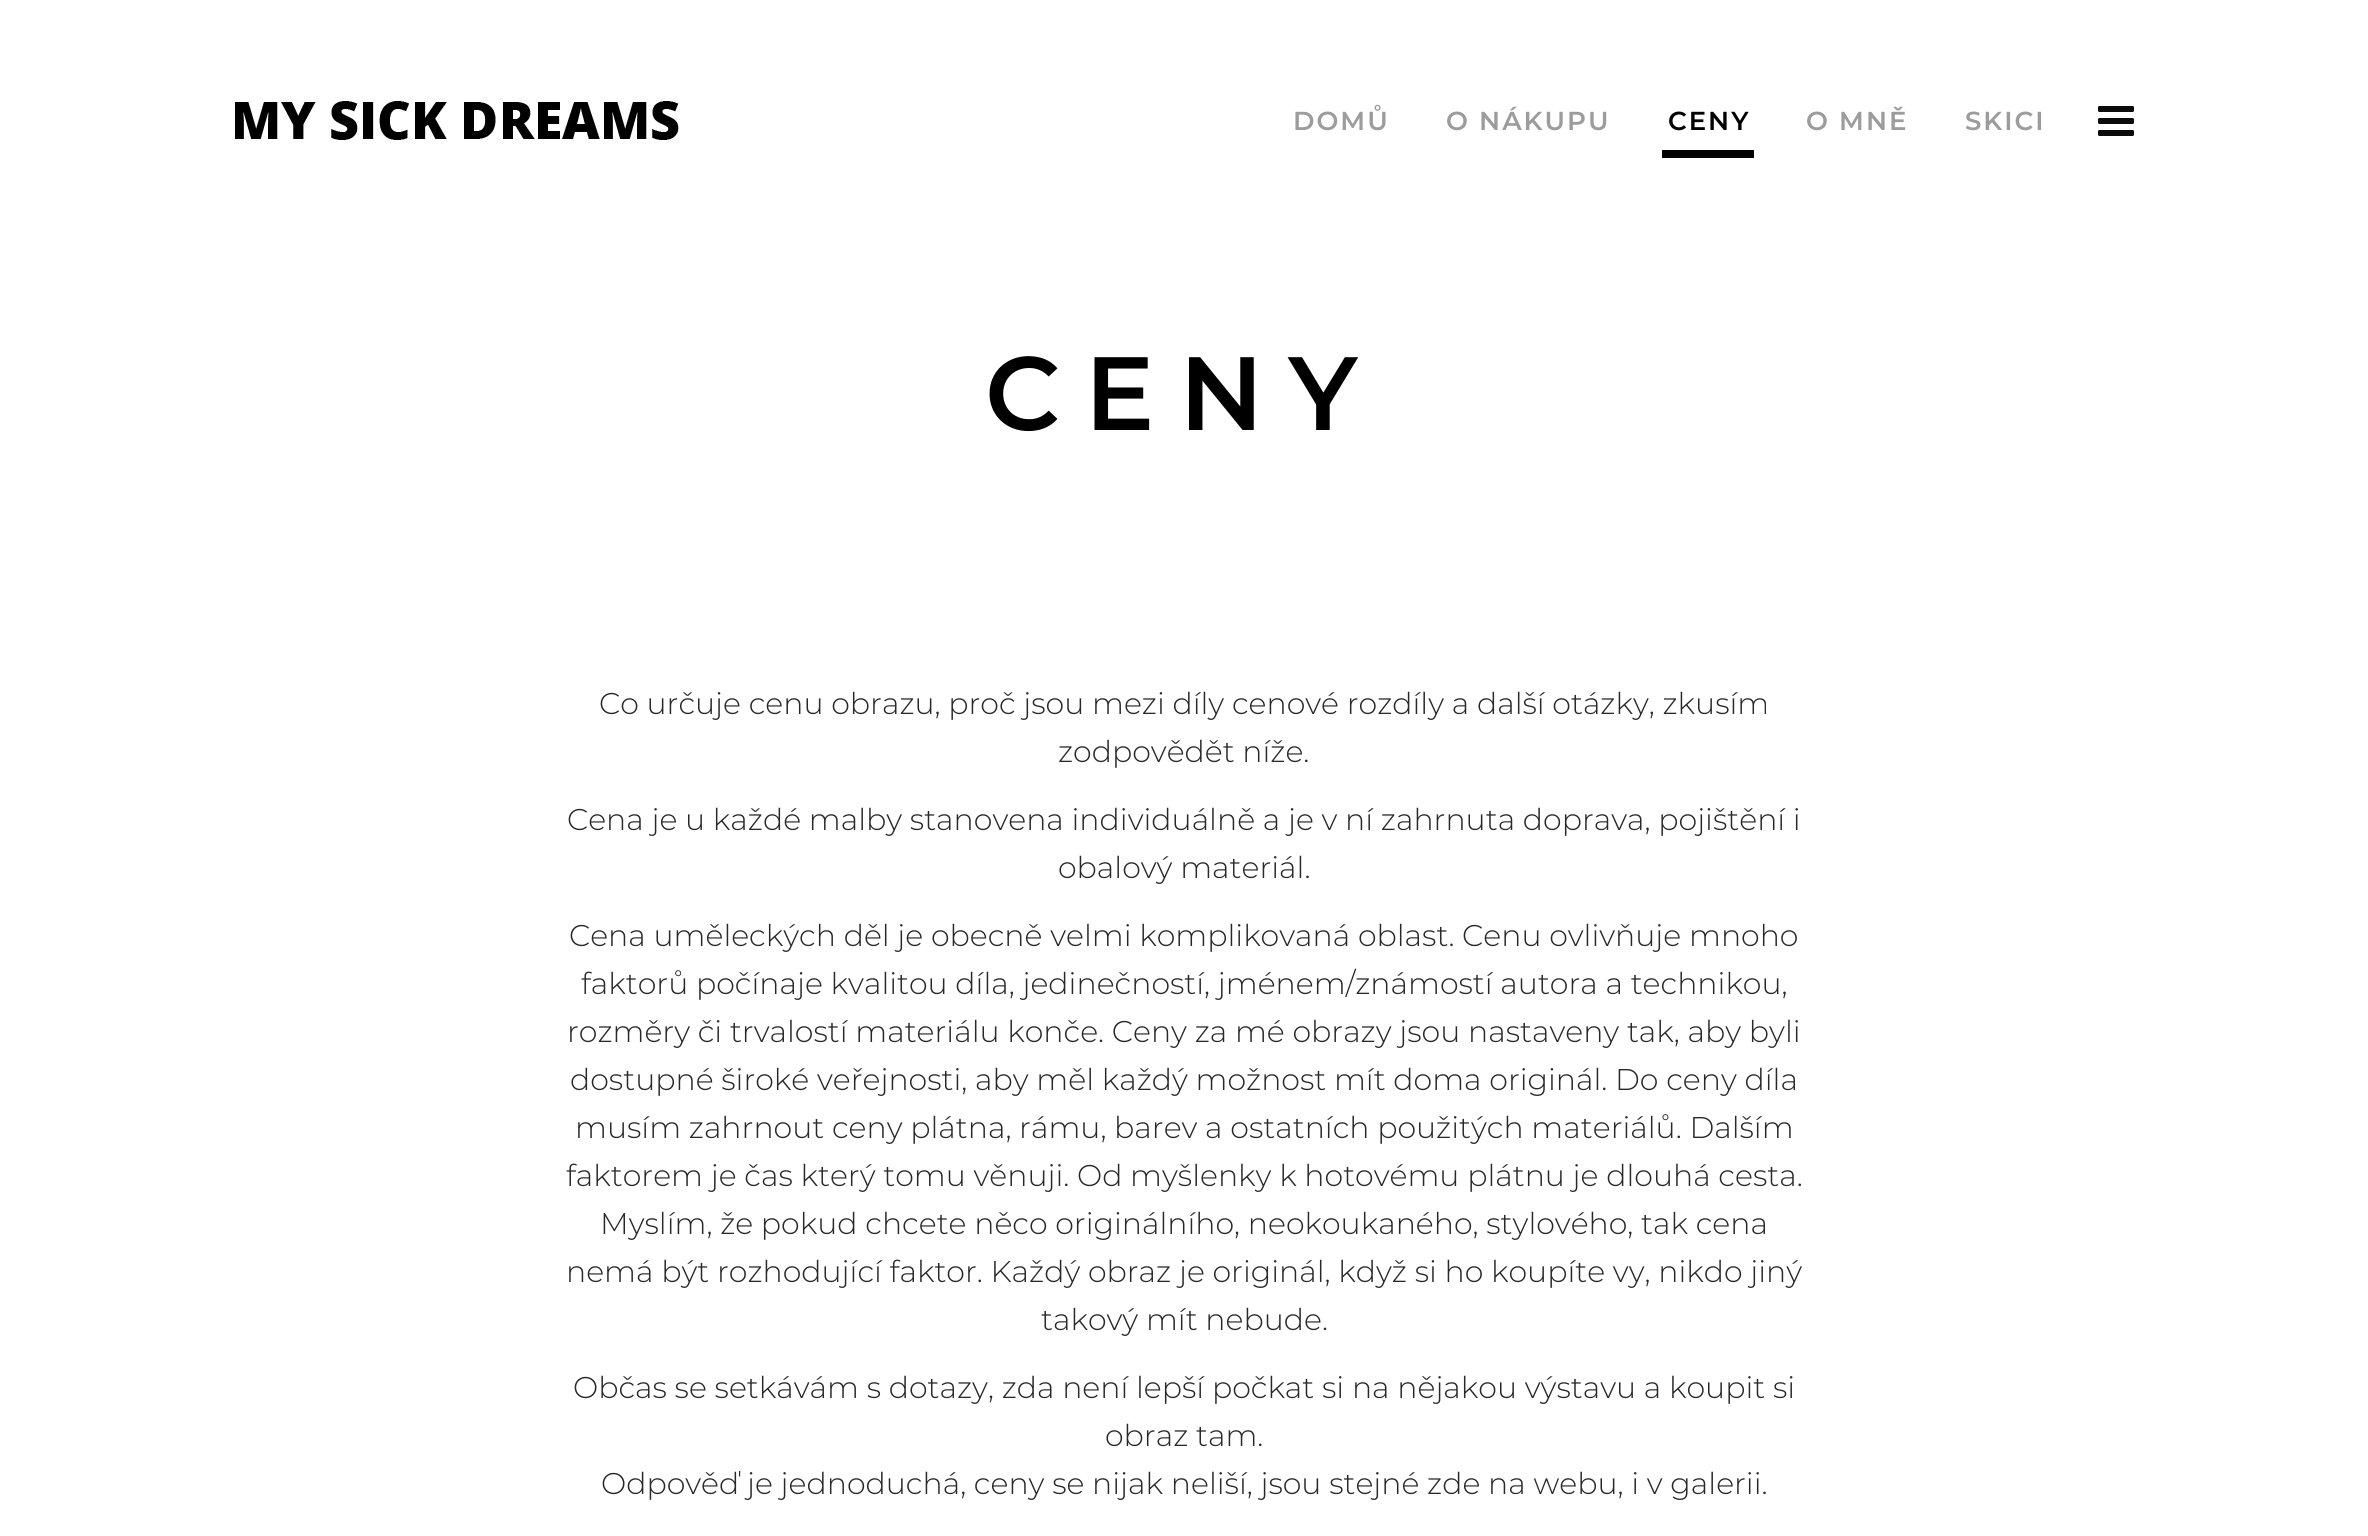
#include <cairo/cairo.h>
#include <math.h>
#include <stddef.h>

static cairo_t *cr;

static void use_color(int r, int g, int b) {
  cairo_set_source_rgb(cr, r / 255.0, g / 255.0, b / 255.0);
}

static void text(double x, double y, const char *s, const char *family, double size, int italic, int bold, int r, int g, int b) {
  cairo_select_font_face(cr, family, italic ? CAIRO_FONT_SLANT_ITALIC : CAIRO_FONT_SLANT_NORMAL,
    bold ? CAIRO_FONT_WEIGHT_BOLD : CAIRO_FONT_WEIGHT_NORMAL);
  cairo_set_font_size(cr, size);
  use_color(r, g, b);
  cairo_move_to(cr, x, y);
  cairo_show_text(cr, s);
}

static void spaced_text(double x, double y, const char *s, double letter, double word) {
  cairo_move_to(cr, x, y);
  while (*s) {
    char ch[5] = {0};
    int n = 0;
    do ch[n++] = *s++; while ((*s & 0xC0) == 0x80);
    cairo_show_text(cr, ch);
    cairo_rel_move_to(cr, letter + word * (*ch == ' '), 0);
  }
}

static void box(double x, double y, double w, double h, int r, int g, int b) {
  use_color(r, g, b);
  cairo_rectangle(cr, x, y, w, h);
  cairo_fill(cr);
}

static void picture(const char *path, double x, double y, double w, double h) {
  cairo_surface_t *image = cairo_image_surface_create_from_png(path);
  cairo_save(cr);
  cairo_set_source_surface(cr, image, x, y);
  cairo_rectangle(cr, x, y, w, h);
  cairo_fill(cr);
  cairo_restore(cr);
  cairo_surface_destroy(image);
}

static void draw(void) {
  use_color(255, 255, 255);
  cairo_paint(cr);
  picture("img_01.png", 235, 101, 444, 39);
  box(1662, 150, 92, 8, 0, 0, 0);
  picture("img_02.png", 2098, 106, 36, 30);
  cairo_select_font_face(cr, "Montserrat SemiBold", CAIRO_FONT_SLANT_NORMAL, CAIRO_FONT_WEIGHT_NORMAL);
  cairo_set_font_size(cr, 26);
  use_color(156, 156, 156);
  spaced_text(1293, 130, "DOMŮ", 2, 0);
  spaced_text(1446, 130, "O NÁKUPU", 2, 0);
  use_color(0, 0, 0);
  spaced_text(1668, 130, "CENY", 2, 0);
  use_color(156, 156, 156);
  spaced_text(1806, 130, "O MNĚ", 2, 0);
  spaced_text(1965, 130, "SKICI", 2, 0);
  cairo_set_font_size(cr, 104);
  use_color(0, 0, 0);
  spaced_text(985, 430, "CENY", 25, 0);
  text(599, 714, "Co určuje cenu obrazu, proč jsou mezi díly cenové rozdíly a další otázky, zkusím", "Montserrat Light", 30, 0, 0, 40, 40, 40);
  text(1058, 762, "zodpovědět níže.", "Montserrat Light", 30, 0, 0, 40, 40, 40);
  text(567, 830, "Cena je u každé malby stanovena individuálně a je v ní zahrnuta doprava, pojištění i", "Montserrat Light", 30, 0, 0, 40, 40, 40);
  text(1058, 878, "obalový materiál.", "Montserrat Light", 30, 0, 0, 40, 40, 40);
  text(569, 946, "Cena uměleckých děl je obecně velmi komplikovaná oblast. Cenu ovlivňuje mnoho", "Montserrat Light", 30, 0, 0, 40, 40, 40);
  text(581, 994, "faktorů počínaje kvalitou díla, jedinečností, jménem/známostí autora a technikou,", "Montserrat Light", 30, 0, 0, 40, 40, 40);
  text(567, 1042, "rozměry či trvalostí materiálu konče. Ceny za mé obrazy jsou nastaveny tak, aby byli", "Montserrat Light", 30, 0, 0, 40, 40, 40);
  text(570, 1090, "dostupné široké veřejnosti, aby měl každý možnost mít doma originál. Do ceny díla", "Montserrat Light", 30, 0, 0, 40, 40, 40);
  text(575, 1138, "musím zahrnout ceny plátna, rámu, barev a ostatních použitých materiálů. Dalším", "Montserrat Light", 30, 0, 0, 40, 40, 40);
  text(566, 1186, "faktorem je čas který tomu věnuji. Od myšlenky k hotovému plátnu je dlouhá cesta.", "Montserrat Light", 30, 0, 0, 40, 40, 40);
  text(600, 1234, "Myslím, že pokud chcete něco originálního, neokoukaného, stylového, tak cena", "Montserrat Light", 30, 0, 0, 40, 40, 40);
  text(566, 1282, "nemá být rozhodující faktor. Každý obraz je originál, když si ho koupíte vy, nikdo jiný", "Montserrat Light", 30, 0, 0, 40, 40, 40);
  text(1041, 1330, "takový mít nebude.", "Montserrat Light", 30, 0, 0, 40, 40, 40);
  text(573, 1398, "Občas se setkávám s dotazy, zda není lepší počkat si na nějakou výstavu a koupit si", "Montserrat Light", 30, 0, 0, 40, 40, 40);
  text(1105, 1446, "obraz tam.", "Montserrat Light", 30, 0, 0, 40, 40, 40);
  text(601, 1494, "Odpověď je jednoduchá, ceny se nijak neliší, jsou stejné zde na webu, i v galerii.", "Montserrat Light", 30, 0, 0, 40, 40, 40);
}

int main(void) {
  cairo_surface_t *surface = cairo_image_surface_create(CAIRO_FORMAT_RGB24, 2368, 1536);
  cr = cairo_create(surface);
  cairo_font_options_t *options = cairo_font_options_create();
  cairo_font_options_set_hint_metrics(options, CAIRO_HINT_METRICS_OFF);
  cairo_font_options_set_hint_style(options, CAIRO_HINT_STYLE_NONE);
  cairo_set_font_options(cr, options);
  cairo_set_miter_limit(cr, 4);
  draw();
  cairo_surface_write_to_png(surface, "out.png");
  cairo_font_options_destroy(options);
  cairo_destroy(cr);
  cairo_surface_destroy(surface);
  return 0;
}
